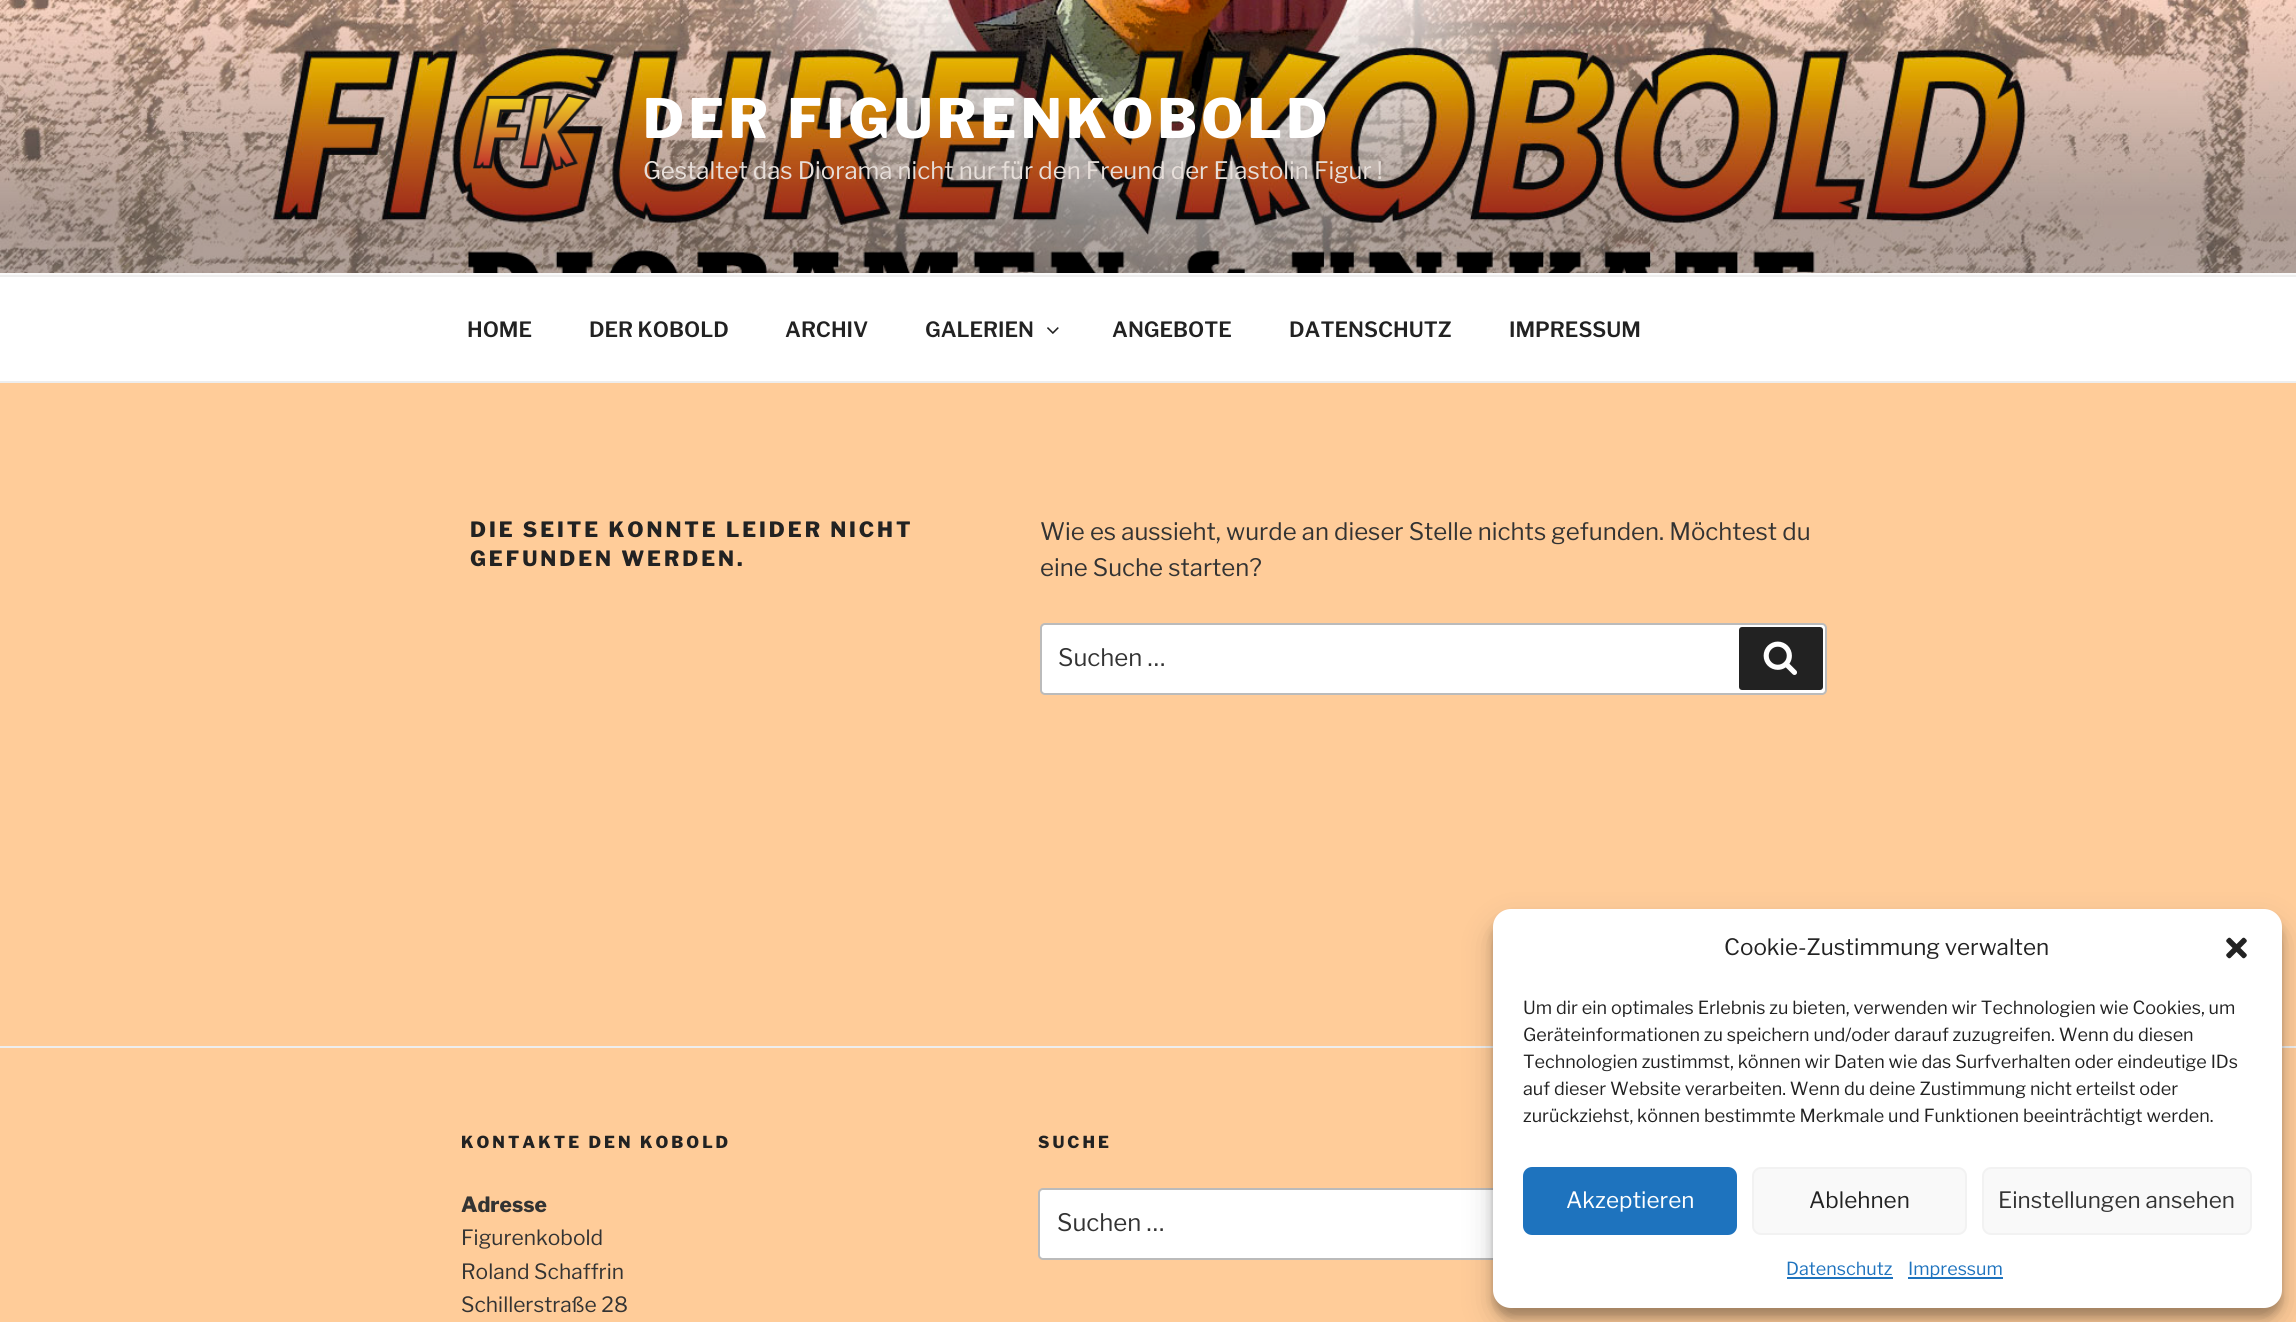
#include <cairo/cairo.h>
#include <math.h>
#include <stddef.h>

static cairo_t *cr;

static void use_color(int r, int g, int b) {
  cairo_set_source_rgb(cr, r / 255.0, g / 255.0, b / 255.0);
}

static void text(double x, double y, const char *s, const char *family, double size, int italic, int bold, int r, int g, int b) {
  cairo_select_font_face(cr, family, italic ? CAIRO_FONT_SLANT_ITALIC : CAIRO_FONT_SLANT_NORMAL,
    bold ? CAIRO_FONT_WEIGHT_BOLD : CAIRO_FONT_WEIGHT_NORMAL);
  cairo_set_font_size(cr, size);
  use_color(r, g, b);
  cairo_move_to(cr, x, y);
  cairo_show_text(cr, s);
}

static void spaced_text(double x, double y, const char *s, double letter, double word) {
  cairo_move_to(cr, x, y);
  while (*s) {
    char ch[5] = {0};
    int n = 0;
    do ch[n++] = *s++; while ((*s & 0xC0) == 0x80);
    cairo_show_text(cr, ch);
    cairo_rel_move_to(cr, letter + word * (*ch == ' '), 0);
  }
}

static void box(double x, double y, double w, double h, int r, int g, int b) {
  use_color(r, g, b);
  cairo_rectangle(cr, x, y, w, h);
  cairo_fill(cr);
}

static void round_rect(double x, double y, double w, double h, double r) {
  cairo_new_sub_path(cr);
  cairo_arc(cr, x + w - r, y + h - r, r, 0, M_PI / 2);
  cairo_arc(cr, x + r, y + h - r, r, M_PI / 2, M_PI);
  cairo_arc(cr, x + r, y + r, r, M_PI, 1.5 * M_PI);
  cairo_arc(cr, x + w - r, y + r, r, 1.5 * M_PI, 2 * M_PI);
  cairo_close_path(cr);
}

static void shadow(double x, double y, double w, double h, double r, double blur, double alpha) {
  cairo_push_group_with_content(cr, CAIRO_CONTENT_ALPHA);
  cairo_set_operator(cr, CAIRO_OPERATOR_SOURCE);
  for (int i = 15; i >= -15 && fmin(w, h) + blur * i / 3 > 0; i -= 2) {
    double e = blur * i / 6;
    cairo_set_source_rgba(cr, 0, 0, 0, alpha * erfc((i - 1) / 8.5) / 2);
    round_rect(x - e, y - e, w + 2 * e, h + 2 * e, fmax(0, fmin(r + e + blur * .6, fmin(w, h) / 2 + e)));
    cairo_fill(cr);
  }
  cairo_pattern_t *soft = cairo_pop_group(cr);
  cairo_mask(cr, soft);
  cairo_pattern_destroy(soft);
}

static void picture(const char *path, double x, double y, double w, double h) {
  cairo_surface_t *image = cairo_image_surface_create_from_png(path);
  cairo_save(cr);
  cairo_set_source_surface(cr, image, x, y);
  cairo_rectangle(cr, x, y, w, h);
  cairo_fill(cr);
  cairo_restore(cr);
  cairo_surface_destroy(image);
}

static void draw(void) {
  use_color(250, 250, 250);
  cairo_paint(cr);
  picture("img_01.png", 0, 0, 2296, 273);
  picture("img_02.png", 473, 93, 118, 78);
  box(0, 277, 2296, 104, 255, 255, 255);
  box(0, 275, 2296, 2, 238, 238, 238);
  box(0, 381, 2296, 2, 238, 238, 238);
  picture("img_03.png", 1047, 327, 12, 7);
  box(0, 383, 2296, 939, 255, 204, 153);
  use_color(255, 255, 255);
  round_rect(1041, 624, 785, 70, 4);
  cairo_fill_preserve(cr);
  use_color(187, 187, 187);
  cairo_stroke(cr);
  use_color(34, 34, 34);
  round_rect(1739, 627, 84, 63, 3);
  cairo_fill(cr);
  picture("img_04.png", 1763, 641, 34, 34);
  box(0, 1046, 2296, 2, 238, 238, 238);
  use_color(255, 255, 255);
  round_rect(1039, 1189, 796, 70, 4);
  cairo_fill_preserve(cr);
  use_color(187, 187, 187);
  cairo_stroke(cr);
  use_color(0, 0, 0);
  shadow(1493, 918, 789, 399, 18, 4.5, 0.23);
  shadow(1493, 924, 789, 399, 18, 15, 0.19);
  use_color(255, 255, 255);
  round_rect(1493, 909, 789, 399, 18);
  cairo_fill(cr);
  picture("img_05.png", 2226, 937, 21, 22);
  use_color(30, 115, 190);
  round_rect(1524, 1168, 212, 66, 8);
  cairo_fill_preserve(cr);
  cairo_stroke(cr);
  use_color(249, 249, 249);
  round_rect(1753, 1168, 213, 66, 8);
  cairo_fill_preserve(cr);
  use_color(242, 242, 242);
  cairo_stroke(cr);
  use_color(249, 249, 249);
  round_rect(1983, 1168, 268, 66, 8);
  cairo_fill_preserve(cr);
  use_color(242, 242, 242);
  cairo_stroke(cr);
  box(1787, 1277, 106, 2, 30, 115, 190);
  box(1908, 1277, 95, 2, 30, 115, 190);
  cairo_select_font_face(cr, "Libre Franklin Thin", CAIRO_FONT_SLANT_NORMAL, CAIRO_FONT_WEIGHT_NORMAL);
  cairo_set_font_size(cr, 54);
  use_color(255, 255, 255);
  spaced_text(643, 138, "DER FIGURENKOBOLD", 4.3, 0);
  text(643, 179, "Gestaltet das Diorama nicht nur für den Freund der Elastolin", "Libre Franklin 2 Thin", 24, 0, 0, 231, 223, 218);
  text(1314, 179, "Figur !", "Libre Franklin 2 Thin", 24, 0, 0, 231, 223, 218);
  text(467, 337, "HOME", "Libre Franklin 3 Thin", 21, 0, 0, 34, 34, 34);
  text(589, 337, "DER KOBOLD", "Libre Franklin 3 Thin", 21, 0, 0, 34, 34, 34);
  text(785, 337, "ARCHIV", "Libre Franklin 3 Thin", 21, 0, 0, 34, 34, 34);
  text(925, 337, "GALERIEN", "Libre Franklin 3 Thin", 21, 0, 0, 34, 34, 34);
  text(1112, 337, "ANGEBOTE", "Libre Franklin 3 Thin", 21, 0, 0, 34, 34, 34);
  text(1289, 337, "DATENSCHUTZ", "Libre Franklin 3 Thin", 21, 0, 0, 34, 34, 34);
  text(1509, 337, "IMPRESSUM", "Libre Franklin 3 Thin", 21, 0, 0, 34, 34, 34);
  cairo_select_font_face(cr, "Libre Franklin Thin", CAIRO_FONT_SLANT_NORMAL, CAIRO_FONT_WEIGHT_NORMAL);
  spaced_text(470, 537, "DIE SEITE KONNTE LEIDER NICHT", 2.95, 0);
  spaced_text(470, 566, "GEFUNDEN WERDEN.", 2.95, 0);
  text(1040, 540, "Wie es aussieht, wurde an dieser Stelle nichts gefunden. Möchtest du", "Libre Franklin 2 Thin", 24, 0, 0, 51, 51, 51);
  text(1040, 576, "eine Suche starten?", "Libre Franklin 2 Thin", 24, 0, 0, 51, 51, 51);
  text(1058, 666, "Suchen …", "Libre Franklin 2 Thin", 24, 0, 0, 51, 51, 51);
  cairo_select_font_face(cr, "Libre Franklin Thin", CAIRO_FONT_SLANT_NORMAL, CAIRO_FONT_WEIGHT_NORMAL);
  cairo_set_font_size(cr, 16.5);
  use_color(34, 34, 34);
  spaced_text(461, 1148, "KONTAKTE DEN KOBOLD", 3, 0);
  text(461, 1212, "Adresse", "Libre Franklin Thin", 21, 0, 0, 51, 51, 51);
  text(461, 1245, "Figurenkobold", "Libre Franklin 2 Thin", 21, 0, 0, 51, 51, 51);
  text(461, 1279, "Roland Schaffrin", "Libre Franklin 2 Thin", 21, 0, 0, 51, 51, 51);
  text(461, 1312, "Schillerstraße 28", "Libre Franklin 2 Thin", 21, 0, 0, 51, 51, 51);
  cairo_select_font_face(cr, "Libre Franklin Thin", CAIRO_FONT_SLANT_NORMAL, CAIRO_FONT_WEIGHT_NORMAL);
  cairo_set_font_size(cr, 16.5);
  use_color(34, 34, 34);
  spaced_text(1038, 1148, "SUCHE", 3, 0);
  text(1057, 1231, "Suchen …", "Libre Franklin 2 Thin", 24, 0, 0, 51, 51, 51);
  text(1724, 955, "Cookie-Zustimmung verwalten", "Libre Franklin 2 Thin", 22.5, 0, 0, 34, 34, 34);
  text(1523, 1014, "Um dir ein optimales Erlebnis zu bieten, verwenden wir Technologien wie Cookies, um", "Libre Franklin 2 Thin", 18, 0, 0, 34, 34, 34);
  text(1523, 1041, "Geräteinformationen zu speichern und/oder darauf zuzugreifen. Wenn du diesen", "Libre Franklin 2 Thin", 18, 0, 0, 34, 34, 34);
  text(1523, 1068, "Technologien zustimmst, können wir Daten wie das Surfverhalten oder eindeutige IDs", "Libre Franklin 2 Thin", 18, 0, 0, 34, 34, 34);
  text(1523, 1095, "auf dieser Website verarbeiten. Wenn du deine Zustimmung nicht erteilst oder", "Libre Franklin 2 Thin", 18, 0, 0, 34, 34, 34);
  text(1523, 1122, "zurückziehst, können bestimmte Merkmale und Funktionen beeinträchtigt werden.", "Libre Franklin 2 Thin", 18, 0, 0, 34, 34, 34);
  text(1566, 1208, "Akzeptieren", "Libre Franklin 2 Thin", 22.5, 0, 0, 255, 255, 255);
  text(1809, 1208, "Ablehnen", "Libre Franklin 2 Thin", 22.5, 0, 0, 34, 34, 34);
  text(1998, 1208, "Einstellungen ansehen", "Libre Franklin 2 Thin", 22.5, 0, 0, 51, 51, 51);
  text(1786, 1275, "Datenschutz", "Libre Franklin 2 Thin", 18, 0, 0, 30, 115, 190);
  text(1908, 1275, "Impressum", "Libre Franklin 2 Thin", 18, 0, 0, 30, 115, 190);
}

int main(void) {
  cairo_surface_t *surface = cairo_image_surface_create(CAIRO_FORMAT_RGB24, 2296, 1322);
  cr = cairo_create(surface);
  cairo_font_options_t *options = cairo_font_options_create();
  cairo_font_options_set_hint_metrics(options, CAIRO_HINT_METRICS_OFF);
  cairo_font_options_set_hint_style(options, CAIRO_HINT_STYLE_NONE);
  cairo_set_font_options(cr, options);
  cairo_set_miter_limit(cr, 4);
  draw();
  cairo_surface_write_to_png(surface, "out.png");
  cairo_font_options_destroy(options);
  cairo_destroy(cr);
  cairo_surface_destroy(surface);
  return 0;
}
